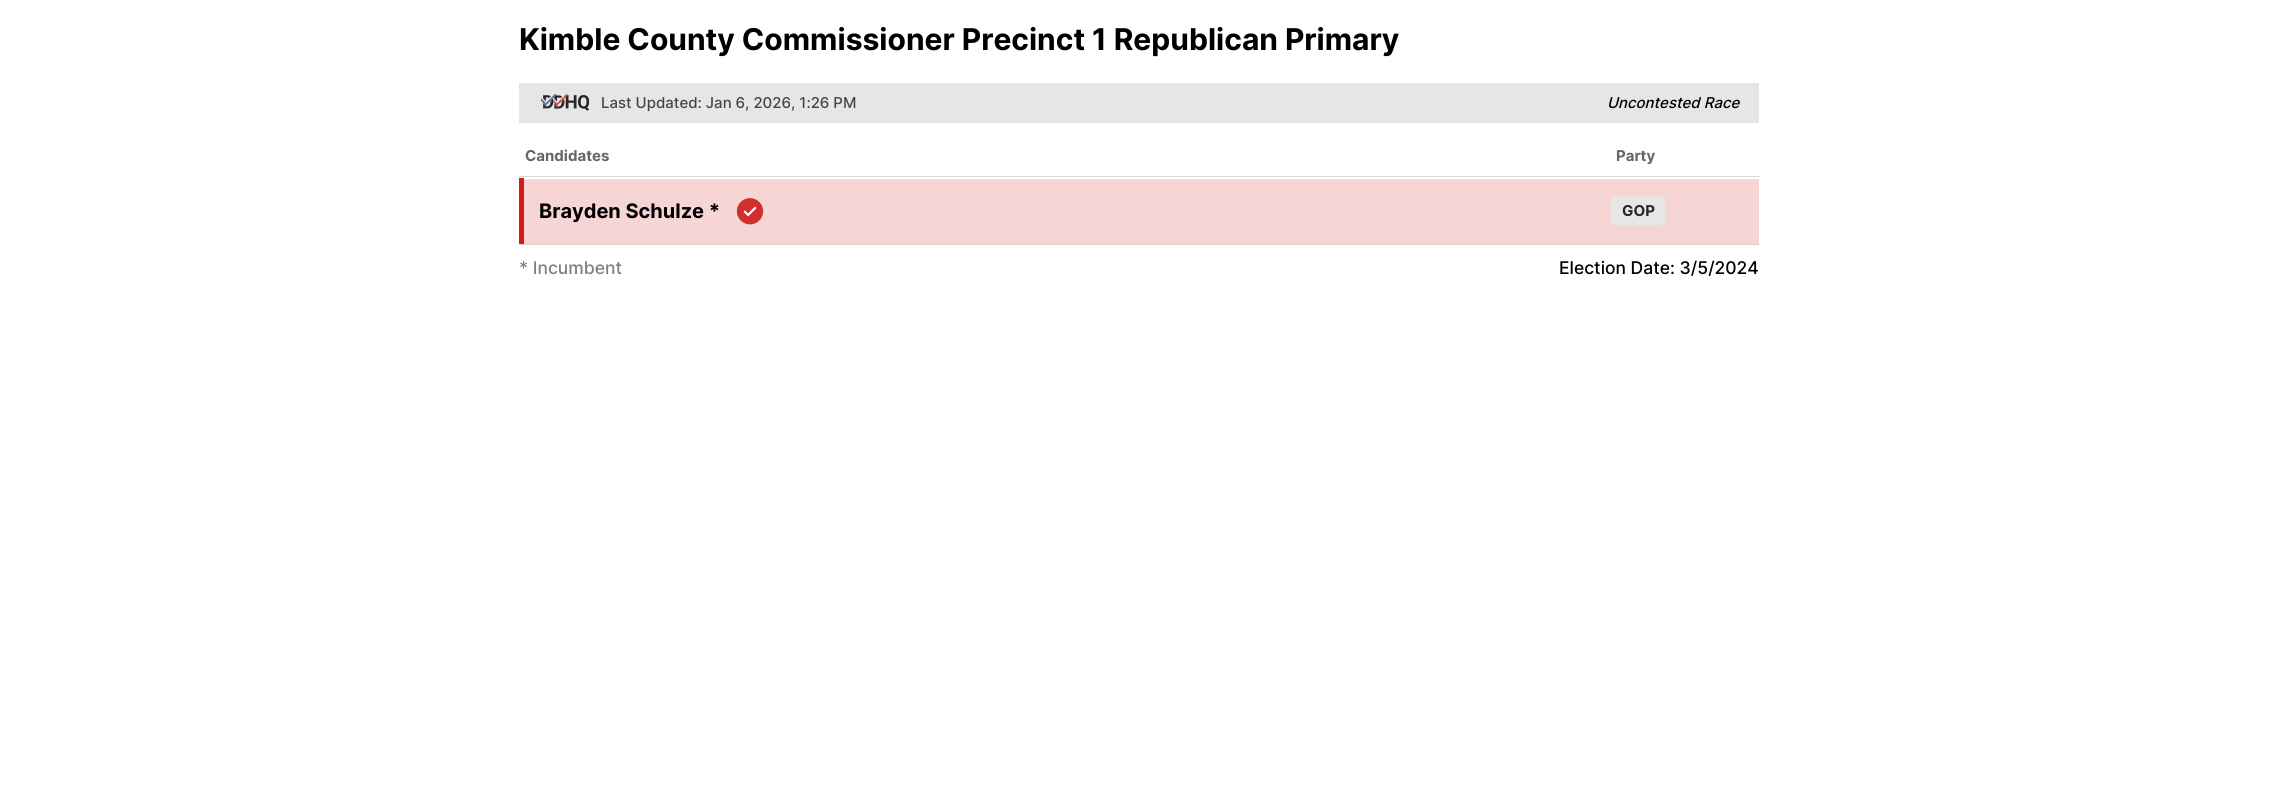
#include <cairo/cairo.h>
#include <math.h>
#include <stddef.h>

static cairo_t *cr;

static void use_color(int r, int g, int b) {
  cairo_set_source_rgb(cr, r / 255.0, g / 255.0, b / 255.0);
}

static void text(double x, double y, const char *s, const char *family, double size, int italic, int bold, int r, int g, int b) {
  cairo_select_font_face(cr, family, italic ? CAIRO_FONT_SLANT_ITALIC : CAIRO_FONT_SLANT_NORMAL,
    bold ? CAIRO_FONT_WEIGHT_BOLD : CAIRO_FONT_WEIGHT_NORMAL);
  cairo_set_font_size(cr, size);
  use_color(r, g, b);
  cairo_move_to(cr, x, y);
  cairo_show_text(cr, s);
}

static void box(double x, double y, double w, double h, int r, int g, int b) {
  use_color(r, g, b);
  cairo_rectangle(cr, x, y, w, h);
  cairo_fill(cr);
}

static void round_rect(double x, double y, double w, double h, double r) {
  cairo_new_sub_path(cr);
  cairo_arc(cr, x + w - r, y + h - r, r, 0, M_PI / 2);
  cairo_arc(cr, x + r, y + h - r, r, M_PI / 2, M_PI);
  cairo_arc(cr, x + r, y + r, r, M_PI, 1.5 * M_PI);
  cairo_arc(cr, x + w - r, y + r, r, 1.5 * M_PI, 2 * M_PI);
  cairo_close_path(cr);
}

static void picture(const char *path, double x, double y, double w, double h) {
  cairo_surface_t *image = cairo_image_surface_create_from_png(path);
  cairo_save(cr);
  cairo_set_source_surface(cr, image, x, y);
  cairo_rectangle(cr, x, y, w, h);
  cairo_fill(cr);
  cairo_restore(cr);
  cairo_surface_destroy(image);
}

static void draw(void) {
  use_color(255, 255, 255);
  cairo_paint(cr);
  box(519, 83, 1240, 40, 230, 230, 230);
  picture("img_01.png", 541, 94, 48, 17);
  box(524, 179, 1235, 65, 246, 213, 213);
  box(519, 176, 1241, 1, 216, 216, 216);
  box(519, 178, 5, 67, 215, 25, 19);
  box(519, 244, 1241, 1, 216, 216, 216);
  picture("img_02.png", 736, 198, 28, 27);
  use_color(230, 230, 230);
  round_rect(1611, 196, 54, 29, 4);
  cairo_fill(cr);
  text(519, 50, "Kimble County Commissioner Precinct 1 Republican Primary", "Inter", 30, 0, 1, 0, 0, 0);
  text(601, 108, "Last Updated: Jan 6, 2026, 1:26 PM", "Inter Medium", 15, 0, 0, 70, 70, 70);
  text(1607, 108, "Uncontested Race", "Inter Medium", 15, 1, 0, 0, 0, 0);
  text(525, 161, "Candidates", "Inter", 15, 0, 1, 102, 102, 102);
  text(1616, 161, "Party", "Inter", 15, 0, 1, 102, 102, 102);
  text(539, 218, "Brayden Schulze *", "Inter", 20, 0, 1, 0, 0, 0);
  text(1622, 216, "GOP", "Inter", 15, 0, 1, 40, 40, 40);
  text(519, 274, "* Incumbent", "Inter Medium", 17.5, 0, 0, 128, 128, 128);
  text(1559, 274, "Election Date: 3/5/2024", "Inter Medium", 17.5, 0, 0, 0, 0, 0);
}

int main(void) {
  cairo_surface_t *surface = cairo_image_surface_create(CAIRO_FORMAT_RGB24, 2277, 794);
  cr = cairo_create(surface);
  cairo_font_options_t *options = cairo_font_options_create();
  cairo_font_options_set_hint_metrics(options, CAIRO_HINT_METRICS_OFF);
  cairo_font_options_set_hint_style(options, CAIRO_HINT_STYLE_NONE);
  cairo_set_font_options(cr, options);
  cairo_set_miter_limit(cr, 4);
  draw();
  cairo_surface_write_to_png(surface, "out.png");
  cairo_font_options_destroy(options);
  cairo_destroy(cr);
  cairo_surface_destroy(surface);
  return 0;
}
